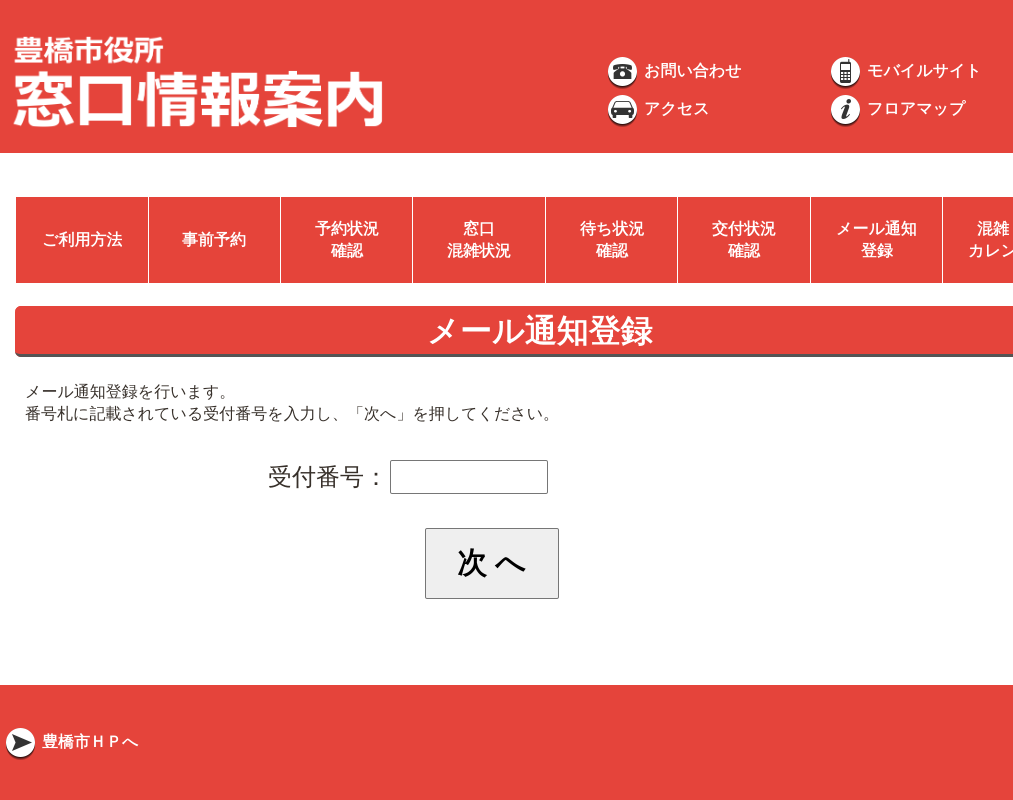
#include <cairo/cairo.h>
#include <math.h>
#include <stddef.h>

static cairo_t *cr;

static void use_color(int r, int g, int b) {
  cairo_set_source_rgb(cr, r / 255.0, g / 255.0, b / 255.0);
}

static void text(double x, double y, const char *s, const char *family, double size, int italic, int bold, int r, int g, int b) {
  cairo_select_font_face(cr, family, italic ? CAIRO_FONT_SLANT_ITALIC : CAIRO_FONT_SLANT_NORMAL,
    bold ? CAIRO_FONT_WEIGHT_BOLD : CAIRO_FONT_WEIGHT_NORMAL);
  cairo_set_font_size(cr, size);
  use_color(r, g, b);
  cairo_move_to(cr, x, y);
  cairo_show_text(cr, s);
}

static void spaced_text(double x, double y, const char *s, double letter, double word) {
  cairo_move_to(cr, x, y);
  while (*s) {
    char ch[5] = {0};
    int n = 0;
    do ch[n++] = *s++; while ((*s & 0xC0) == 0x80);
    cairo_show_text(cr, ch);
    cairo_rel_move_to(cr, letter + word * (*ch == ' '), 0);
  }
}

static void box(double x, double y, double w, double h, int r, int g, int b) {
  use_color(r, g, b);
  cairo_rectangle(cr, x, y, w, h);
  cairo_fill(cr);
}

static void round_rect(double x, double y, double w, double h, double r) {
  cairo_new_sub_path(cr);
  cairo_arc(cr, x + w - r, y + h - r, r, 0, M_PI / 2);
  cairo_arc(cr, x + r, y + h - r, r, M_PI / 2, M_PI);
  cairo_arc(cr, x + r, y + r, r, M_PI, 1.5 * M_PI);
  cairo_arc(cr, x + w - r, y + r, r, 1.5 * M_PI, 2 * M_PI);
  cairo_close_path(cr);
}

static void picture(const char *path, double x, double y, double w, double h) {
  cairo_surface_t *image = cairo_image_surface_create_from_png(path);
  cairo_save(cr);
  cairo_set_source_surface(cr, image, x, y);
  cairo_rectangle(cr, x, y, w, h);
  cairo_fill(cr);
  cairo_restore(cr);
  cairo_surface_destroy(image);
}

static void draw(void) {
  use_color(255, 255, 255);
  cairo_paint(cr);
  box(0, 0, 1013, 153, 229, 68, 59);
  picture("img_01.png", 13, 35, 370, 93);
  picture("img_02.png", 608, 57, 29, 32);
  picture("img_03.png", 831, 57, 29, 32);
  picture("img_04.png", 608, 95, 29, 32);
  picture("img_05.png", 831, 95, 29, 32);
  box(16, 197, 132, 86, 229, 68, 58);
  box(149, 197, 131, 86, 229, 68, 58);
  box(281, 197, 131, 86, 229, 68, 58);
  box(413, 197, 132, 86, 229, 68, 58);
  box(546, 197, 131, 86, 229, 68, 58);
  box(678, 197, 132, 86, 229, 68, 58);
  box(811, 197, 131, 86, 229, 68, 58);
  box(943, 197, 70, 86, 229, 68, 58);
  use_color(229, 68, 59);
  round_rect(15, 306, 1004, 51, 6);
  cairo_fill(cr);
  cairo_new_path(cr);
  cairo_move_to(cr, 21, 306);
  cairo_curve_to(cr, 18, 306, 15, 309, 15, 312);
  cairo_curve_to(cr, 15, 310, 18, 309, 21, 309);
  cairo_line_to(cr, 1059, 309);
  cairo_curve_to(cr, 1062, 309, 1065, 310, 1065, 312);
  cairo_curve_to(cr, 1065, 309, 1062, 306, 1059, 306);
  cairo_close_path(cr);
  cairo_fill(cr);
  use_color(84, 84, 84);
  cairo_new_path(cr);
  cairo_move_to(cr, 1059, 357);
  cairo_curve_to(cr, 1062, 357, 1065, 354, 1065, 351);
  cairo_curve_to(cr, 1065, 353, 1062, 354, 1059, 354);
  cairo_line_to(cr, 21, 354);
  cairo_curve_to(cr, 18, 354, 15, 353, 15, 351);
  cairo_curve_to(cr, 15, 354, 18, 357, 21, 357);
  cairo_close_path(cr);
  cairo_fill(cr);
  round_rect(390.5, 460.5, 157, 33, 1.5);
  use_color(118, 118, 118);
  cairo_set_line_width(cr, 1);
  cairo_stroke(cr);
  use_color(239, 239, 239);
  round_rect(425.5, 528.5, 133, 70, 1.5);
  cairo_fill_preserve(cr);
  use_color(118, 118, 118);
  cairo_stroke(cr);
  box(0, 685, 1013, 115, 229, 68, 59);
  picture("img_06.png", 6, 728, 29, 32);
  text(644, 76, "お問い合わせ", "WenQuanYi Zen Hei", 16, 0, 1, 255, 255, 255);
  text(867, 76, "モバイルサイト", "WenQuanYi Zen Hei", 16, 0, 1, 255, 255, 255);
  text(644, 114, "アクセス", "WenQuanYi Zen Hei", 16, 0, 1, 255, 255, 255);
  text(867, 114, "フロアマップ", "WenQuanYi Zen Hei", 16, 0, 1, 255, 255, 255);
  text(42, 245, "ご利用方法", "WenQuanYi Zen Hei", 16, 0, 1, 255, 255, 255);
  text(182, 245, "事前予約", "WenQuanYi Zen Hei", 16, 0, 1, 255, 255, 255);
  text(315, 234, "予約状況", "WenQuanYi Zen Hei", 16, 0, 1, 255, 255, 255);
  text(331, 256, "確認", "WenQuanYi Zen Hei", 16, 0, 1, 255, 255, 255);
  text(463, 234, "窓口", "WenQuanYi Zen Hei", 16, 0, 1, 255, 255, 255);
  text(447, 256, "混雑状況", "WenQuanYi Zen Hei", 16, 0, 1, 255, 255, 255);
  text(580, 234, "待ち状況", "WenQuanYi Zen Hei", 16, 0, 1, 255, 255, 255);
  text(596, 256, "確認", "WenQuanYi Zen Hei", 16, 0, 1, 255, 255, 255);
  text(712, 234, "交付状況", "WenQuanYi Zen Hei", 16, 0, 1, 255, 255, 255);
  text(728, 256, "確認", "WenQuanYi Zen Hei", 16, 0, 1, 255, 255, 255);
  text(836, 234, "メール通知", "WenQuanYi Zen Hei", 16, 0, 1, 255, 255, 255);
  text(861, 256, "登録", "WenQuanYi Zen Hei", 16, 0, 1, 255, 255, 255);
  text(977, 234, "混雑", "WenQuanYi Zen Hei", 16, 0, 1, 255, 255, 255);
  text(968, 256, "カレン", "WenQuanYi Zen Hei", 16, 0, 1, 255, 255, 255);
  text(427, 342, "メール通知登録", "WenQuanYi Zen Hei", 32, 0, 1, 255, 255, 255);
  text(25, 397, "メール通知登録を行います。", "WenQuanYi Zen Hei Medium", 16, 0, 0, 55, 48, 42);
  text(25, 419, "番号札に記載されている受付番号を入力し、「次へ」を押してください。", "WenQuanYi Zen Hei Medium", 16, 0, 0, 55, 48, 42);
  text(268, 485, "受付番号：", "WenQuanYi Zen Hei Medium", 24, 0, 0, 55, 48, 42);
  cairo_select_font_face(cr, "WenQuanYi Zen Hei", CAIRO_FONT_SLANT_NORMAL, CAIRO_FONT_WEIGHT_BOLD);
  cairo_set_font_size(cr, 30);
  use_color(0, 0, 0);
  spaced_text(457, 573, "次 へ", 0, -1);
  text(42, 747, "豊橋市ＨＰへ", "WenQuanYi Zen Hei", 16, 0, 1, 255, 255, 255);
}

int main(void) {
  cairo_surface_t *surface = cairo_image_surface_create(CAIRO_FORMAT_RGB24, 1013, 800);
  cr = cairo_create(surface);
  cairo_font_options_t *options = cairo_font_options_create();
  cairo_font_options_set_hint_metrics(options, CAIRO_HINT_METRICS_OFF);
  cairo_font_options_set_hint_style(options, CAIRO_HINT_STYLE_NONE);
  cairo_set_font_options(cr, options);
  cairo_set_miter_limit(cr, 4);
  draw();
  cairo_surface_write_to_png(surface, "out.png");
  cairo_font_options_destroy(options);
  cairo_destroy(cr);
  cairo_surface_destroy(surface);
  return 0;
}
